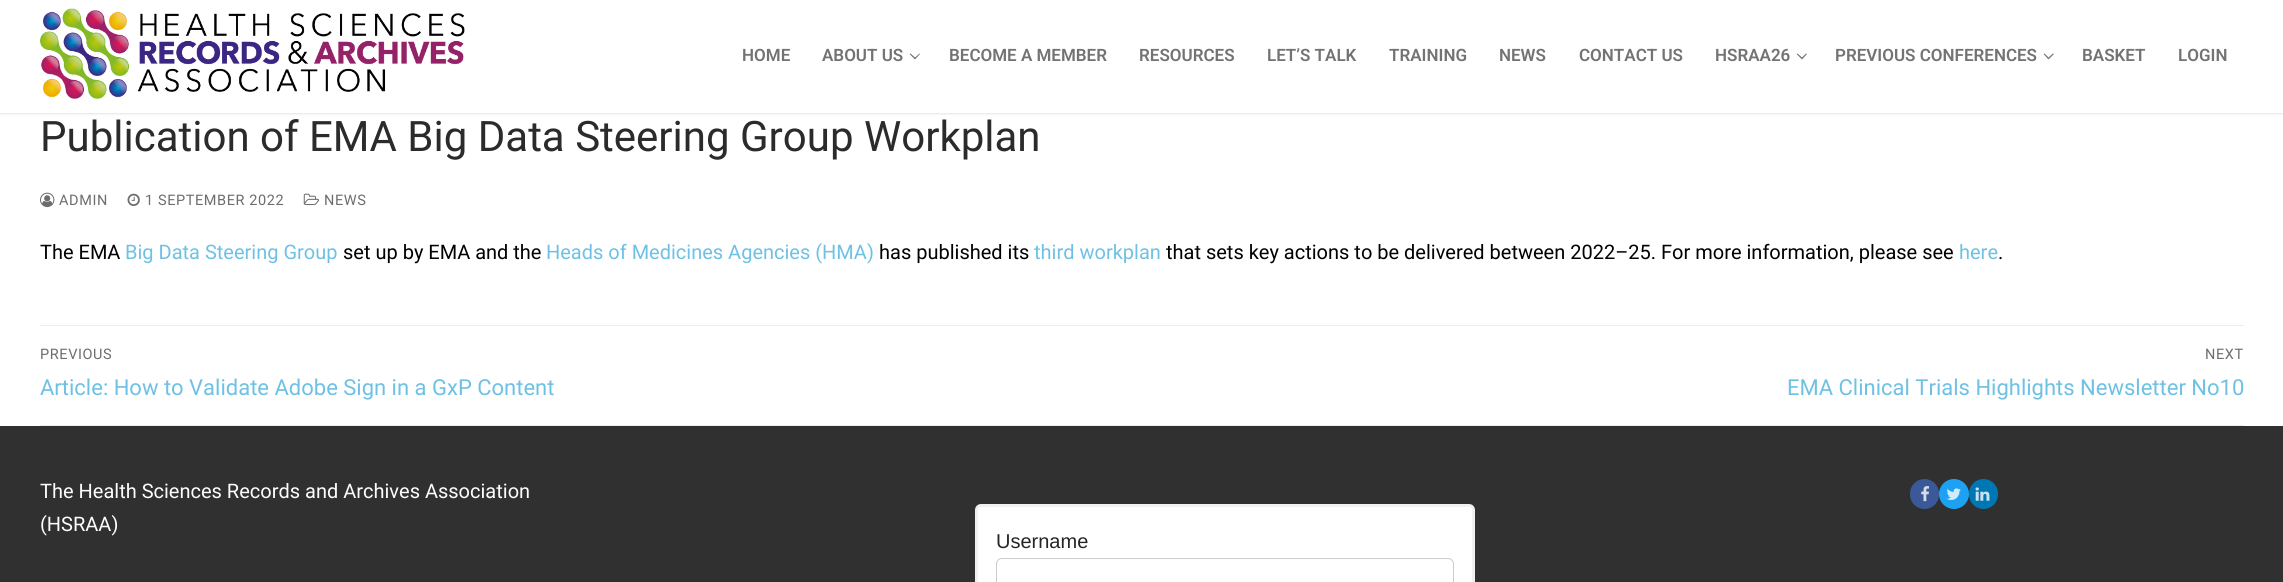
#include <cairo/cairo.h>
#include <math.h>
#include <stddef.h>

static cairo_t *cr;

static void use_color(int r, int g, int b) {
  cairo_set_source_rgb(cr, r / 255.0, g / 255.0, b / 255.0);
}

static void text(double x, double y, const char *s, const char *family, double size, int italic, int bold, int r, int g, int b) {
  cairo_select_font_face(cr, family, italic ? CAIRO_FONT_SLANT_ITALIC : CAIRO_FONT_SLANT_NORMAL,
    bold ? CAIRO_FONT_WEIGHT_BOLD : CAIRO_FONT_WEIGHT_NORMAL);
  cairo_set_font_size(cr, size);
  use_color(r, g, b);
  cairo_move_to(cr, x, y);
  cairo_show_text(cr, s);
}

static void spaced_text(double x, double y, const char *s, double letter, double word) {
  cairo_move_to(cr, x, y);
  while (*s) {
    char ch[5] = {0};
    int n = 0;
    do ch[n++] = *s++; while ((*s & 0xC0) == 0x80);
    cairo_show_text(cr, ch);
    cairo_rel_move_to(cr, letter + word * (*ch == ' '), 0);
  }
}

static void box(double x, double y, double w, double h, int r, int g, int b) {
  use_color(r, g, b);
  cairo_rectangle(cr, x, y, w, h);
  cairo_fill(cr);
}

static void round_rect(double x, double y, double w, double h, double r) {
  cairo_new_sub_path(cr);
  cairo_arc(cr, x + w - r, y + h - r, r, 0, M_PI / 2);
  cairo_arc(cr, x + r, y + h - r, r, M_PI / 2, M_PI);
  cairo_arc(cr, x + r, y + r, r, M_PI, 1.5 * M_PI);
  cairo_arc(cr, x + w - r, y + r, r, 1.5 * M_PI, 2 * M_PI);
  cairo_close_path(cr);
}

static void shadow(double x, double y, double w, double h, double r, double blur, double alpha) {
  cairo_push_group_with_content(cr, CAIRO_CONTENT_ALPHA);
  cairo_set_operator(cr, CAIRO_OPERATOR_SOURCE);
  for (int i = 15; i >= -15 && fmin(w, h) + blur * i / 3 > 0; i -= 2) {
    double e = blur * i / 6;
    cairo_set_source_rgba(cr, 0, 0, 0, alpha * erfc((i - 1) / 8.5) / 2);
    round_rect(x - e, y - e, w + 2 * e, h + 2 * e, fmax(0, fmin(r + e + blur * .6, fmin(w, h) / 2 + e)));
    cairo_fill(cr);
  }
  cairo_pattern_t *soft = cairo_pop_group(cr);
  cairo_mask(cr, soft);
  cairo_pattern_destroy(soft);
}

static void picture(const char *path, double x, double y, double w, double h) {
  cairo_surface_t *image = cairo_image_surface_create_from_png(path);
  cairo_save(cr);
  cairo_set_source_surface(cr, image, x, y);
  cairo_rectangle(cr, x, y, w, h);
  cairo_fill(cr);
  cairo_restore(cr);
  cairo_surface_destroy(image);
}

static void draw(void) {
  use_color(255, 255, 255);
  cairo_paint(cr);
  use_color(225, 229, 234);
  shadow(0, 1, 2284, 113, 0, 1, 1);
  box(0, 0, 2283, 113, 255, 255, 255);
  picture("img_01.png", 40, 8, 425, 91);
  use_color(115, 115, 115);
  cairo_new_path(cr);
  cairo_move_to(cr, 915, 59.5);
  cairo_line_to(cr, 909.5, 54);
  cairo_line_to(cr, 910.5, 53.5);
  cairo_line_to(cr, 915, 57.5);
  cairo_close_path(cr);
  cairo_move_to(cr, 920, 54);
  cairo_line_to(cr, 915, 59.5);
  cairo_line_to(cr, 915, 57.5);
  cairo_line_to(cr, 919.5, 53.5);
  cairo_close_path(cr);
  cairo_fill(cr);
  cairo_new_path(cr);
  cairo_move_to(cr, 1802, 59.5);
  cairo_line_to(cr, 1796.5, 54);
  cairo_line_to(cr, 1797.5, 53.5);
  cairo_line_to(cr, 1802, 57.5);
  cairo_close_path(cr);
  cairo_move_to(cr, 1807, 54);
  cairo_line_to(cr, 1802, 59.5);
  cairo_line_to(cr, 1802, 57.5);
  cairo_line_to(cr, 1806, 53.5);
  cairo_close_path(cr);
  cairo_fill(cr);
  cairo_new_path(cr);
  cairo_move_to(cr, 2048.5, 59.5);
  cairo_line_to(cr, 2043.5, 54);
  cairo_line_to(cr, 2044.5, 53.5);
  cairo_line_to(cr, 2048.5, 57.5);
  cairo_close_path(cr);
  cairo_fill(cr);
  cairo_set_source_rgba(cr, 0, 0, 0, 0.55);
  cairo_new_path(cr);
  cairo_move_to(cr, 2054, 54);
  cairo_line_to(cr, 2048.5, 59.5);
  cairo_line_to(cr, 2048.5, 57.5);
  cairo_line_to(cr, 2053, 53.5);
  cairo_close_path(cr);
  cairo_fill(cr);
  picture("img_02.png", 40, 192, 15, 16);
  picture("img_03.png", 127, 193, 13, 13);
  picture("img_04.png", 303, 193, 17, 12);
  box(40, 325, 2204, 1, 234, 236, 238);
  box(40, 425, 2204, 1, 234, 236, 238);
  box(0, 426, 2283, 156, 48, 48, 48);
  use_color(59, 89, 152);
  round_rect(1910, 479, 29, 30, 14.5);
  cairo_fill(cr);
  picture("img_05.png", 1921, 486, 9, 16);
  use_color(29, 161, 242);
  cairo_arc(cr, 1954, 494, 15, 0, 2 * M_PI);
  cairo_fill(cr);
  picture("img_06.png", 1946, 488, 15, 12);
  use_color(0, 119, 181);
  round_rect(1969, 479, 29, 30, 14.5);
  cairo_fill(cr);
  picture("img_07.png", 1975, 487, 15, 14);
  use_color(255, 255, 255);
  round_rect(976.5, 505.5, 497, 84, 4.5);
  cairo_fill_preserve(cr);
  use_color(241, 241, 241);
  cairo_set_line_width(cr, 3);
  cairo_stroke(cr);
  round_rect(996.5, 558.5, 457, 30, 5.5);
  use_color(204, 204, 204);
  cairo_set_line_width(cr, 1);
  cairo_stroke(cr);
  text(742, 61, "HOME", "Roboto SemiBold", 17, 0, 0, 115, 115, 115);
  text(822, 61, "ABOUT US", "Roboto SemiBold", 17, 0, 0, 115, 115, 115);
  text(949, 61, "BECOME A MEMBER", "Roboto SemiBold", 17, 0, 0, 115, 115, 115);
  text(1139, 61, "RESOURCES", "Roboto SemiBold", 17, 0, 0, 115, 115, 115);
  text(1267, 61, "LET’S TALK", "Roboto SemiBold", 17, 0, 0, 115, 115, 115);
  text(1389, 61, "TRAINING", "Roboto SemiBold", 17, 0, 0, 115, 115, 115);
  text(1499, 61, "NEWS", "Roboto SemiBold", 17, 0, 0, 115, 115, 115);
  text(1579, 61, "CONTACT US", "Roboto SemiBold", 17, 0, 0, 115, 115, 115);
  text(1715, 61, "HSRAA26", "Roboto SemiBold", 17, 0, 0, 115, 115, 115);
  text(1835, 61, "PREVIOUS CONFERENCES", "Roboto SemiBold", 17, 0, 0, 115, 115, 115);
  text(2082, 61, "BASKET", "Roboto SemiBold", 17, 0, 0, 115, 115, 115);
  text(2178, 61, "LOGIN", "Roboto SemiBold", 17, 0, 0, 115, 115, 115);
  text(40, 151, "Publication of EMA Big Data Steering Group Workplan", "Roboto", 42, 0, 0, 43, 43, 43);
  cairo_set_font_size(cr, 14.5);
  use_color(109, 109, 109);
  spaced_text(59, 205, "ADMIN", 0.6, 0);
  spaced_text(145, 205, "1 SEPTEMBER 2022", 0.6, 0);
  spaced_text(324, 205, "NEWS", 0.6, 0);
  text(40, 259, "The EMA", "Roboto", 20, 0, 0, 0, 0, 0);
  text(125, 259, "Big Data Steering Group", "Roboto", 20, 0, 0, 110, 193, 228);
  text(343, 259, "set up by EMA and the", "Roboto", 20, 0, 0, 0, 0, 0);
  text(546, 259, "Heads of Medicines Agencies (HMA)", "Roboto", 20, 0, 0, 110, 193, 228);
  text(879, 259, "has published its", "Roboto", 20, 0, 0, 0, 0, 0);
  text(1034, 259, "third workplan", "Roboto", 20, 0, 0, 110, 193, 228);
  text(1166, 259, "that sets key actions to be delivered between 2022–25. For more information, please see", "Roboto", 20, 0, 0, 0, 0, 0);
  text(1959, 259, "here", "Roboto", 20, 0, 0, 110, 193, 228);
  text(1998, 259, ".", "Roboto", 20, 0, 0, 0, 0, 0);
  cairo_set_font_size(cr, 14.5);
  use_color(109, 109, 109);
  spaced_text(40, 359, "PREVIOUS", 0.6, 0);
  text(40, 395, "Article: How to Validate Adobe Sign in a GxP Content", "Roboto", 22, 0, 0, 110, 193, 228);
  cairo_set_font_size(cr, 14.5);
  use_color(109, 109, 109);
  spaced_text(2205, 359, "NEXT", 0.6, 0);
  text(1787, 395, "EMA Clinical Trials Highlights Newsletter No10", "Roboto", 22, 0, 0, 110, 193, 228);
  text(40, 498, "The Health Sciences Records and Archives Association", "Roboto", 20, 0, 0, 253, 253, 253);
  text(40, 531, "(HSRAA)", "Roboto", 20, 0, 0, 253, 253, 253);
  text(996, 548, "Username", "Liberation Sans", 20, 0, 0, 37, 37, 37);
}

int main(void) {
  cairo_surface_t *surface = cairo_image_surface_create(CAIRO_FORMAT_RGB24, 2283, 582);
  cr = cairo_create(surface);
  cairo_font_options_t *options = cairo_font_options_create();
  cairo_font_options_set_hint_metrics(options, CAIRO_HINT_METRICS_OFF);
  cairo_font_options_set_hint_style(options, CAIRO_HINT_STYLE_NONE);
  cairo_set_font_options(cr, options);
  cairo_set_miter_limit(cr, 4);
  draw();
  cairo_surface_write_to_png(surface, "out.png");
  cairo_font_options_destroy(options);
  cairo_destroy(cr);
  cairo_surface_destroy(surface);
  return 0;
}
